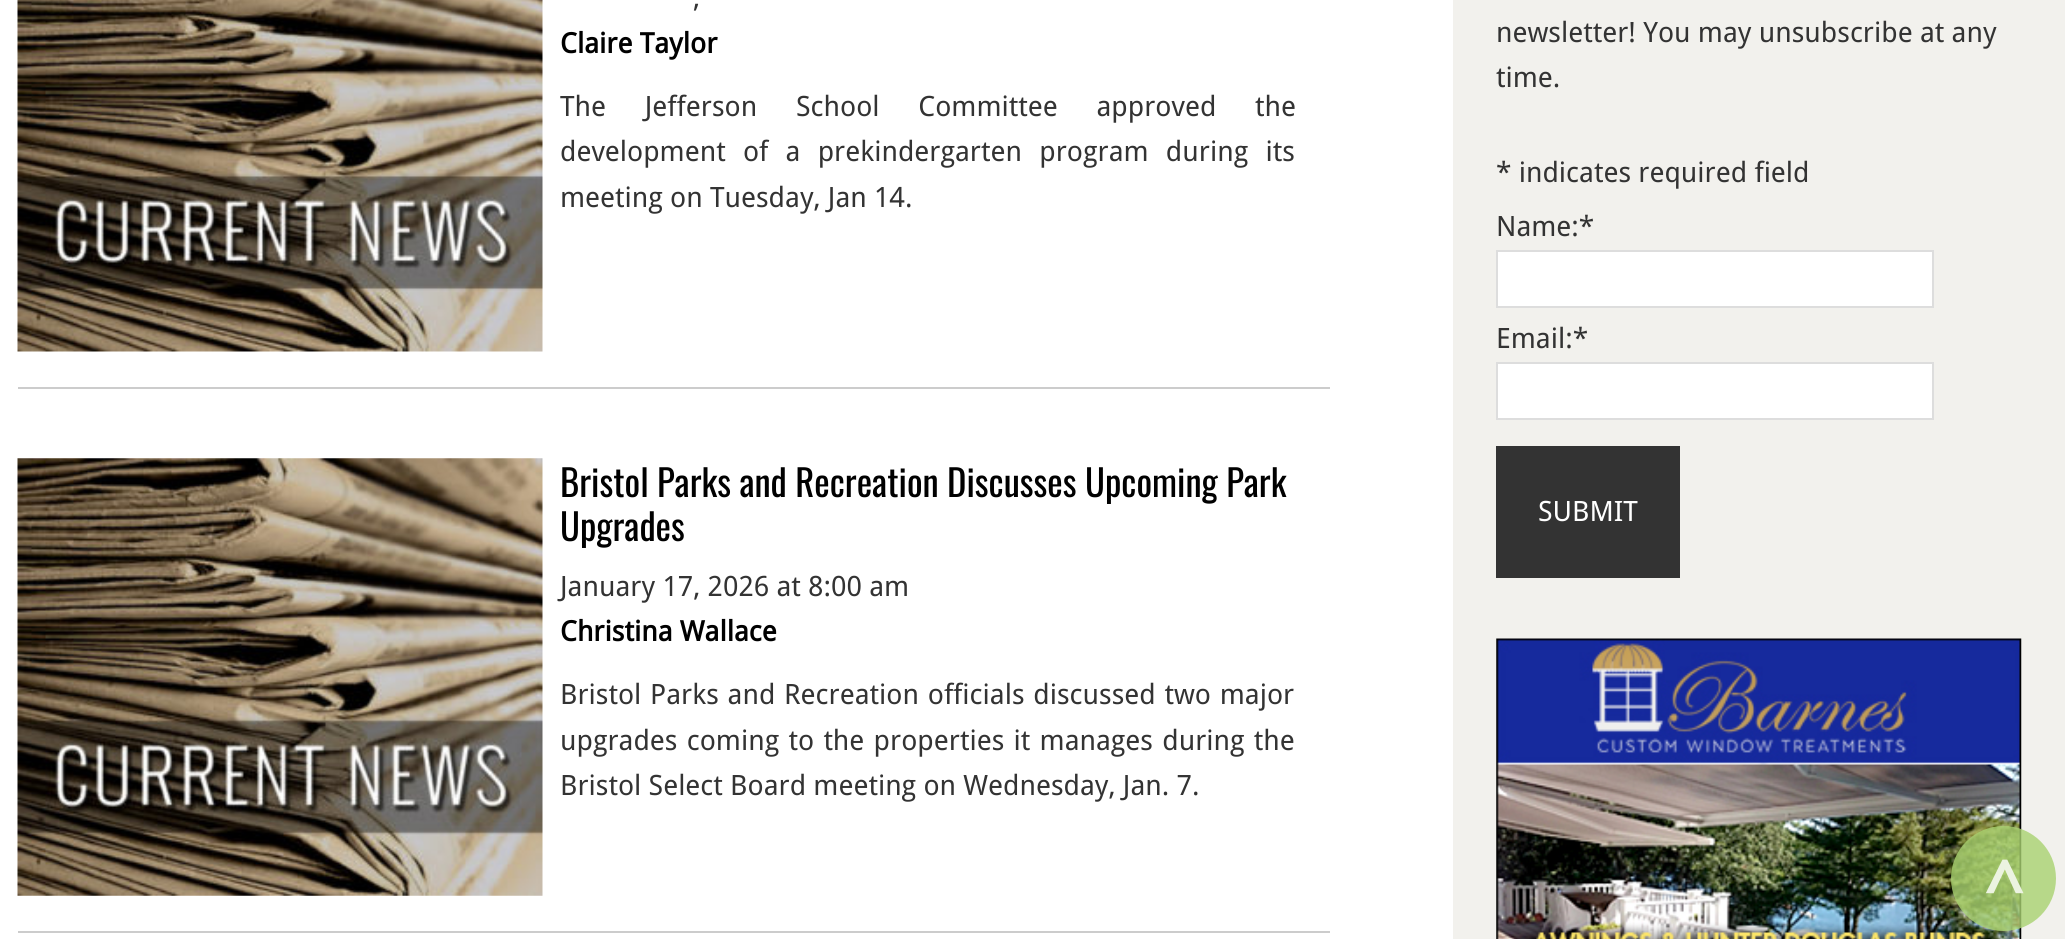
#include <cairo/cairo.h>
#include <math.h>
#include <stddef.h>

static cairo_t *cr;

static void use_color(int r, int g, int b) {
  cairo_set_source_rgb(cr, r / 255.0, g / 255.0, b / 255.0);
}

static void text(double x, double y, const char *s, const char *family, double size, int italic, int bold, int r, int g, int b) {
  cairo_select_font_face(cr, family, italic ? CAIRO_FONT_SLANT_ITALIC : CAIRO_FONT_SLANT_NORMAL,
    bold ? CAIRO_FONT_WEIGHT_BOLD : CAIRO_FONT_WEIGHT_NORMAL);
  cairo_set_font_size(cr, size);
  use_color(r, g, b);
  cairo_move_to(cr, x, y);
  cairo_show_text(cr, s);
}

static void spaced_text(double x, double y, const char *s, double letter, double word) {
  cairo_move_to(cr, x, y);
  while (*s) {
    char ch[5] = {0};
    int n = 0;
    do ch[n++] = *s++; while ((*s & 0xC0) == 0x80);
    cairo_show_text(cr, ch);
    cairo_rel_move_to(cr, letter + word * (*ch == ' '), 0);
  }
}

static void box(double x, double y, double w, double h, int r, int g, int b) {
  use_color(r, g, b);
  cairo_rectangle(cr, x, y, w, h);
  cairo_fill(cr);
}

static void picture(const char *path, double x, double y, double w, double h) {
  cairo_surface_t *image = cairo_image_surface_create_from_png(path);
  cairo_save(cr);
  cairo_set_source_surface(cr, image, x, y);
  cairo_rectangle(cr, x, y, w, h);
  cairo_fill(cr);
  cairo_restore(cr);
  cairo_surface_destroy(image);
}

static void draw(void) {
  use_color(255, 255, 255);
  cairo_paint(cr);
  box(18, 387, 1312, 2, 204, 204, 204);
  picture("img_01.png", 17, 0, 526, 352);
  box(18, 931, 1312, 2, 204, 204, 204);
  picture("img_02.png", 17, 458, 526, 438);
  box(1453, 0, 612, 939, 242, 241, 237);
  use_color(255, 255, 255);
  cairo_rectangle(cr, 1497, 251, 436, 56);
  cairo_fill_preserve(cr);
  use_color(221, 221, 221);
  cairo_stroke(cr);
  use_color(255, 255, 255);
  cairo_rectangle(cr, 1497, 363, 436, 56);
  cairo_fill_preserve(cr);
  use_color(221, 221, 221);
  cairo_stroke(cr);
  box(1496, 446, 184, 132, 51, 51, 51);
  picture("img_03.png", 1496, 638, 526, 301);
  cairo_set_source_rgba(cr, 0.663, 0.824, 0.443, 0.8);
  cairo_arc(cr, 2003.5, 878.5, 52.5, 0, 2 * M_PI);
  cairo_fill(cr);
  text(693, 7, ",", "Droid Sans", 28, 0, 0, 51, 51, 51);
  text(560, 53, "Claire Taylor", "Droid Sans", 28, 0, 1, 0, 0, 0);
  cairo_select_font_face(cr, "Droid Sans", CAIRO_FONT_SLANT_NORMAL, CAIRO_FONT_WEIGHT_NORMAL);
  use_color(51, 51, 51);
  spaced_text(560, 116, "The Jefferson School Committee approved the", 0, 31.5);
  spaced_text(560, 161, "development of a prekindergarten program during its", 0, 10);
  text(560, 207, "meeting on Tuesday, Jan 14.", "Droid Sans", 28, 0, 0, 51, 51, 51);
  text(560, 497, "Bristol Parks and Recreation Discusses Upcoming Park", "Oswald", 36.75, 0, 0, 0, 0, 0);
  text(560, 541, "Upgrades", "Oswald", 36.75, 0, 0, 0, 0, 0);
  text(560, 596, "January 17, 2026 at 8:00 am", "Droid Sans", 28, 0, 0, 51, 51, 51);
  text(560, 641, "Christina Wallace", "Droid Sans", 28, 0, 1, 0, 0, 0);
  cairo_select_font_face(cr, "Droid Sans", CAIRO_FONT_SLANT_NORMAL, CAIRO_FONT_WEIGHT_NORMAL);
  use_color(51, 51, 51);
  spaced_text(560, 704, "Bristol Parks and Recreation officials discussed two major", 0, 1.5);
  spaced_text(560, 750, "upgrades coming to the properties it manages during the", 0, 2);
  text(560, 795, "Bristol Select Board meeting on Wednesday, Jan. 7.", "Droid Sans", 28, 0, 0, 51, 51, 51);
  text(1496, 42, "newsletter! You may unsubscribe at any", "Droid Sans", 28, 0, 0, 51, 51, 51);
  text(1496, 87, "time.", "Droid Sans", 28, 0, 0, 51, 51, 51);
  text(1496, 182, "* indicates required field", "Droid Sans", 28, 0, 0, 51, 51, 51);
  text(1496, 236, "Name:*", "Droid Sans", 28, 0, 0, 51, 51, 51);
  text(1496, 348, "Email:*", "Droid Sans", 28, 0, 0, 51, 51, 51);
  text(1538, 521, "SUBMIT", "Droid Sans", 28, 0, 0, 255, 255, 255);
  text(1985, 912, "^", "Droid Sans", 70, 0, 1, 236, 243, 225);
}

int main(void) {
  cairo_surface_t *surface = cairo_image_surface_create(CAIRO_FORMAT_RGB24, 2065, 939);
  cr = cairo_create(surface);
  cairo_font_options_t *options = cairo_font_options_create();
  cairo_font_options_set_hint_metrics(options, CAIRO_HINT_METRICS_OFF);
  cairo_font_options_set_hint_style(options, CAIRO_HINT_STYLE_NONE);
  cairo_set_font_options(cr, options);
  cairo_set_miter_limit(cr, 4);
  draw();
  cairo_surface_write_to_png(surface, "out.png");
  cairo_font_options_destroy(options);
  cairo_destroy(cr);
  cairo_surface_destroy(surface);
  return 0;
}
